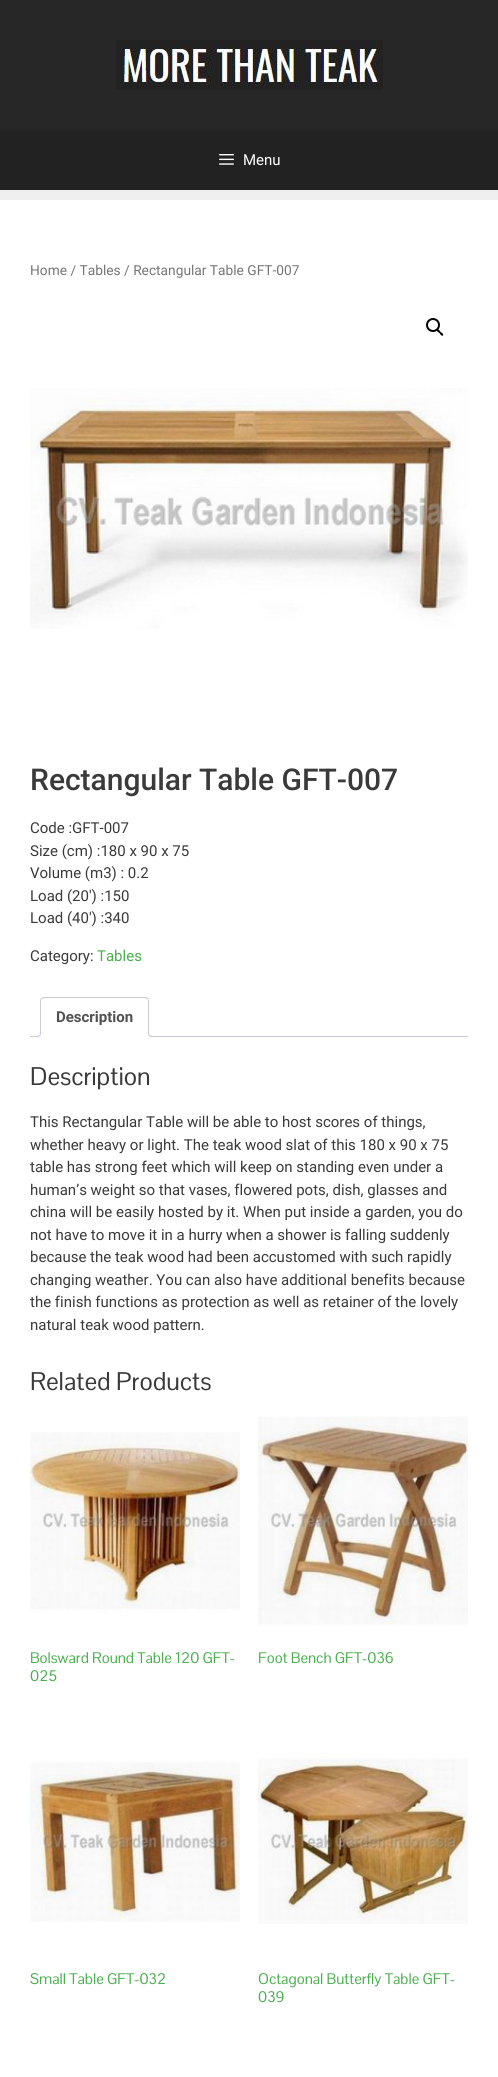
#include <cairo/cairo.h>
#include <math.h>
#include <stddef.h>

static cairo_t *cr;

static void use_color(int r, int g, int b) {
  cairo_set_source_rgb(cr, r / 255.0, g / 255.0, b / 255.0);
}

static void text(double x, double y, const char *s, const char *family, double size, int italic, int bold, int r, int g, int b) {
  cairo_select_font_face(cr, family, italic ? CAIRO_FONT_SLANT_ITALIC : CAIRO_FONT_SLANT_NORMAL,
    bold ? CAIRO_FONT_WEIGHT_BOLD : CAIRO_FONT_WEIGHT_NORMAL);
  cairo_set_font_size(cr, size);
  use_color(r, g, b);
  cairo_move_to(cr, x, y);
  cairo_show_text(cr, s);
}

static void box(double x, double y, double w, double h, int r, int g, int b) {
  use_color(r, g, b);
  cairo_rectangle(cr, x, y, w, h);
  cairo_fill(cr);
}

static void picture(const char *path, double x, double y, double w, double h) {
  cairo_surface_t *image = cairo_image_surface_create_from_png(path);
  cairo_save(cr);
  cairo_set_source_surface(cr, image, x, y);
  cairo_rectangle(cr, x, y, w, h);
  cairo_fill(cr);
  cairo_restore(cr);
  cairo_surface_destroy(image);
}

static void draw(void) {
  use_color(239, 239, 239);
  cairo_paint(cr);
  box(0, 0, 498, 130, 39, 39, 39);
  picture("img_01.png", 116, 40, 267, 50);
  box(0, 130, 498, 60, 34, 34, 34);
  picture("img_02.png", 219, 154, 15, 11);
  box(0, 200, 498, 1877, 255, 255, 255);
  cairo_arc(cr, 433, 325, 6, 0, 2 * M_PI);
  use_color(0, 0, 0);
  cairo_stroke(cr);
  cairo_new_path(cr);
  cairo_move_to(cr, 437, 329.5);
  cairo_curve_to(cr, 438.5, 328.5, 440, 331, 440.5, 332);
  cairo_curve_to(cr, 441.5, 332.5, 444, 334, 443, 335.5);
  cairo_curve_to(cr, 441.5, 336.5, 440, 334, 439.5, 333);
  cairo_curve_to(cr, 438.5, 332.5, 436, 331, 437, 329.5);
  cairo_close_path(cr);
  cairo_fill(cr);
  picture("img_03.png", 30, 388, 438, 241);
  box(30, 1036, 438, 1, 207, 200, 216);
  use_color(255, 255, 255);
  cairo_new_path(cr);
  cairo_move_to(cr, 44, 997);
  cairo_line_to(cr, 145, 997);
  cairo_curve_to(cr, 147, 997, 149, 999, 149, 1001);
  cairo_line_to(cr, 149, 1037);
  cairo_line_to(cr, 40, 1037);
  cairo_line_to(cr, 40, 1001);
  cairo_curve_to(cr, 40, 999, 42, 997, 44, 997);
  cairo_close_path(cr);
  cairo_fill(cr);
  use_color(207, 200, 216);
  cairo_new_path(cr);
  cairo_move_to(cr, 44, 997);
  cairo_line_to(cr, 41, 998);
  cairo_line_to(cr, 42, 999);
  cairo_line_to(cr, 44, 998);
  cairo_line_to(cr, 145, 998);
  cairo_line_to(cr, 147, 999);
  cairo_line_to(cr, 148, 998);
  cairo_line_to(cr, 145, 997);
  cairo_close_path(cr);
  cairo_fill(cr);
  cairo_new_path(cr);
  cairo_move_to(cr, 149, 1037);
  cairo_line_to(cr, 149, 1001);
  cairo_curve_to(cr, 149, 1000, 148.5, 999, 148, 998);
  cairo_line_to(cr, 147, 999);
  cairo_curve_to(cr, 148, 999, 148, 1000, 148, 1001);
  cairo_line_to(cr, 148, 1036);
  cairo_close_path(cr);
  cairo_fill(cr);
  use_color(255, 255, 255);
  cairo_new_path(cr);
  cairo_move_to(cr, 149, 1037);
  cairo_line_to(cr, 148, 1036);
  cairo_line_to(cr, 41, 1036);
  cairo_line_to(cr, 40, 1037);
  cairo_close_path(cr);
  cairo_fill(cr);
  use_color(207, 200, 216);
  cairo_new_path(cr);
  cairo_move_to(cr, 40, 1037);
  cairo_line_to(cr, 41, 1036);
  cairo_line_to(cr, 41, 1001);
  cairo_curve_to(cr, 41, 1000, 41, 999, 42, 999);
  cairo_line_to(cr, 41, 998);
  cairo_curve_to(cr, 40.5, 999, 40, 1000, 40, 1001);
  cairo_close_path(cr);
  cairo_fill(cr);
  cairo_save(cr);
  cairo_rectangle(cr, 30, 997, 438, 40);
  cairo_clip(cr);
  use_color(255, 255, 255);
  cairo_new_path(cr);
  cairo_move_to(cr, 38, 1037);
  cairo_line_to(cr, 38, 1039);
  cairo_curve_to(cr, 41.5, 1039, 43, 1037.5, 43, 1034);
  cairo_line_to(cr, 41, 1034);
  cairo_curve_to(cr, 40.5, 1035.5, 39.5, 1036.5, 38, 1037);
  cairo_close_path(cr);
  cairo_fill(cr);
  cairo_restore(cr);
  cairo_set_fill_rule(cr, CAIRO_FILL_RULE_EVEN_ODD);
  cairo_new_path(cr);
  cairo_move_to(cr, 36, 1032);
  cairo_line_to(cr, 41, 1032);
  cairo_curve_to(cr, 41, 1035.5, 39.5, 1037, 36, 1037);
  cairo_close_path(cr);
  cairo_move_to(cr, 36, 1032);
  cairo_line_to(cr, 40, 1032);
  cairo_curve_to(cr, 40, 1035, 39, 1036, 36, 1036);
  cairo_close_path(cr);
  cairo_fill(cr);
  cairo_save(cr);
  cairo_set_fill_rule(cr, CAIRO_FILL_RULE_WINDING);
  cairo_rectangle(cr, 30, 997, 438, 40);
  cairo_clip(cr);
  use_color(255, 255, 255);
  cairo_new_path(cr);
  cairo_move_to(cr, 146, 1034);
  cairo_curve_to(cr, 146, 1037.5, 147.5, 1039, 151, 1039);
  cairo_line_to(cr, 151, 1037);
  cairo_curve_to(cr, 149.5, 1036.5, 148.5, 1035.5, 148, 1034);
  cairo_close_path(cr);
  cairo_fill(cr);
  cairo_restore(cr);
  cairo_new_path(cr);
  cairo_move_to(cr, 148, 1032);
  cairo_line_to(cr, 153, 1032);
  cairo_line_to(cr, 153, 1037);
  cairo_curve_to(cr, 150.5, 1037, 148, 1036, 148, 1033);
  cairo_close_path(cr);
  cairo_move_to(cr, 149, 1032);
  cairo_line_to(cr, 153, 1032);
  cairo_line_to(cr, 153, 1036);
  cairo_curve_to(cr, 151, 1036, 149, 1035.5, 149, 1033);
  cairo_close_path(cr);
  cairo_fill(cr);
  picture("img_04.png", 30, 1432, 210, 181);
  picture("img_05.png", 258, 1416, 210, 210);
  picture("img_06.png", 30, 1762, 210, 160);
  picture("img_07.png", 258, 1753, 210, 171);
  text(243, 165, "Menu", "Roboto", 15, 0, 0, 255, 255, 255);
  text(30, 275, "Home / Tables / Rectangular Table GFT-007", "Roboto", 13.75, 0, 0, 118, 118, 118);
  text(30, 790, "Rectangular Table GFT-007", "Roboto Medium", 30, 0, 0, 58, 58, 58);
  text(30, 833, "Code :GFT-007", "Roboto", 15, 0, 0, 58, 58, 58);
  text(30, 856, "Size (cm) :180 x 90 x 75", "Roboto", 15, 0, 0, 58, 58, 58);
  text(30, 878, "Volume (m3) : 0.2", "Roboto", 15, 0, 0, 58, 58, 58);
  text(30, 901, "Load (20′) :150", "Roboto", 15, 0, 0, 58, 58, 58);
  text(30, 923, "Load (40′) :340", "Roboto", 15, 0, 0, 58, 58, 58);
  text(30, 961, "Category:", "Roboto", 15, 0, 0, 58, 58, 58);
  text(97, 961, "Tables", "Roboto", 15, 0, 0, 75, 175, 79);
  text(56, 1022, "Description", "Roboto", 15, 0, 1, 81, 81, 81);
  text(30, 1085, "Description", "Pontano Sans", 25, 0, 0, 58, 58, 58);
  text(30, 1127, "This Rectangular Table will be able to host scores of things,", "Roboto", 15, 0, 0, 58, 58, 58);
  text(30, 1150, "whether heavy or light. The teak wood slat of this 180 x 90 x 75", "Roboto", 15, 0, 0, 58, 58, 58);
  text(30, 1172, "table has strong feet which will keep on standing even under a", "Roboto", 15, 0, 0, 58, 58, 58);
  text(30, 1195, "human’s weight so that vases, flowered pots, dish, glasses and", "Roboto", 15, 0, 0, 58, 58, 58);
  text(30, 1217, "china will be easily hosted by it. When put inside a garden, you do", "Roboto", 15, 0, 0, 58, 58, 58);
  text(30, 1240, "not have to move it in a hurry when a shower is falling suddenly", "Roboto", 15, 0, 0, 58, 58, 58);
  text(30, 1262, "because the teak wood had been accustomed with such rapidly", "Roboto", 15, 0, 0, 58, 58, 58);
  text(30, 1285, "changing weather. You can also have additional benefits because", "Roboto", 15, 0, 0, 58, 58, 58);
  text(30, 1307, "the finish functions as protection as well as retainer of the lovely", "Roboto", 15, 0, 0, 58, 58, 58);
  text(30, 1330, "natural teak wood pattern.", "Roboto", 15, 0, 0, 58, 58, 58);
  text(30, 1390, "Related Products", "Pontano Sans", 25, 0, 0, 58, 58, 58);
  text(30, 1663, "Bolsward Round Table 120 GFT-", "Pontano Sans", 15, 0, 0, 75, 175, 79);
  text(30, 1681, "025", "Pontano Sans", 15, 0, 0, 75, 175, 79);
  text(258, 1663, "Foot Bench GFT-036", "Pontano Sans", 15, 0, 0, 75, 175, 79);
  text(30, 1984, "Small Table GFT-032", "Pontano Sans", 15, 0, 0, 75, 175, 79);
  text(258, 1984, "Octagonal Butterfly Table GFT-", "Pontano Sans", 15, 0, 0, 75, 175, 79);
  text(258, 2002, "039", "Pontano Sans", 15, 0, 0, 75, 175, 79);
}

int main(void) {
  cairo_surface_t *surface = cairo_image_surface_create(CAIRO_FORMAT_RGB24, 498, 2077);
  cr = cairo_create(surface);
  cairo_font_options_t *options = cairo_font_options_create();
  cairo_font_options_set_hint_metrics(options, CAIRO_HINT_METRICS_OFF);
  cairo_font_options_set_hint_style(options, CAIRO_HINT_STYLE_NONE);
  cairo_set_font_options(cr, options);
  cairo_set_miter_limit(cr, 4);
  draw();
  cairo_surface_write_to_png(surface, "out.png");
  cairo_font_options_destroy(options);
  cairo_destroy(cr);
  cairo_surface_destroy(surface);
  return 0;
}
